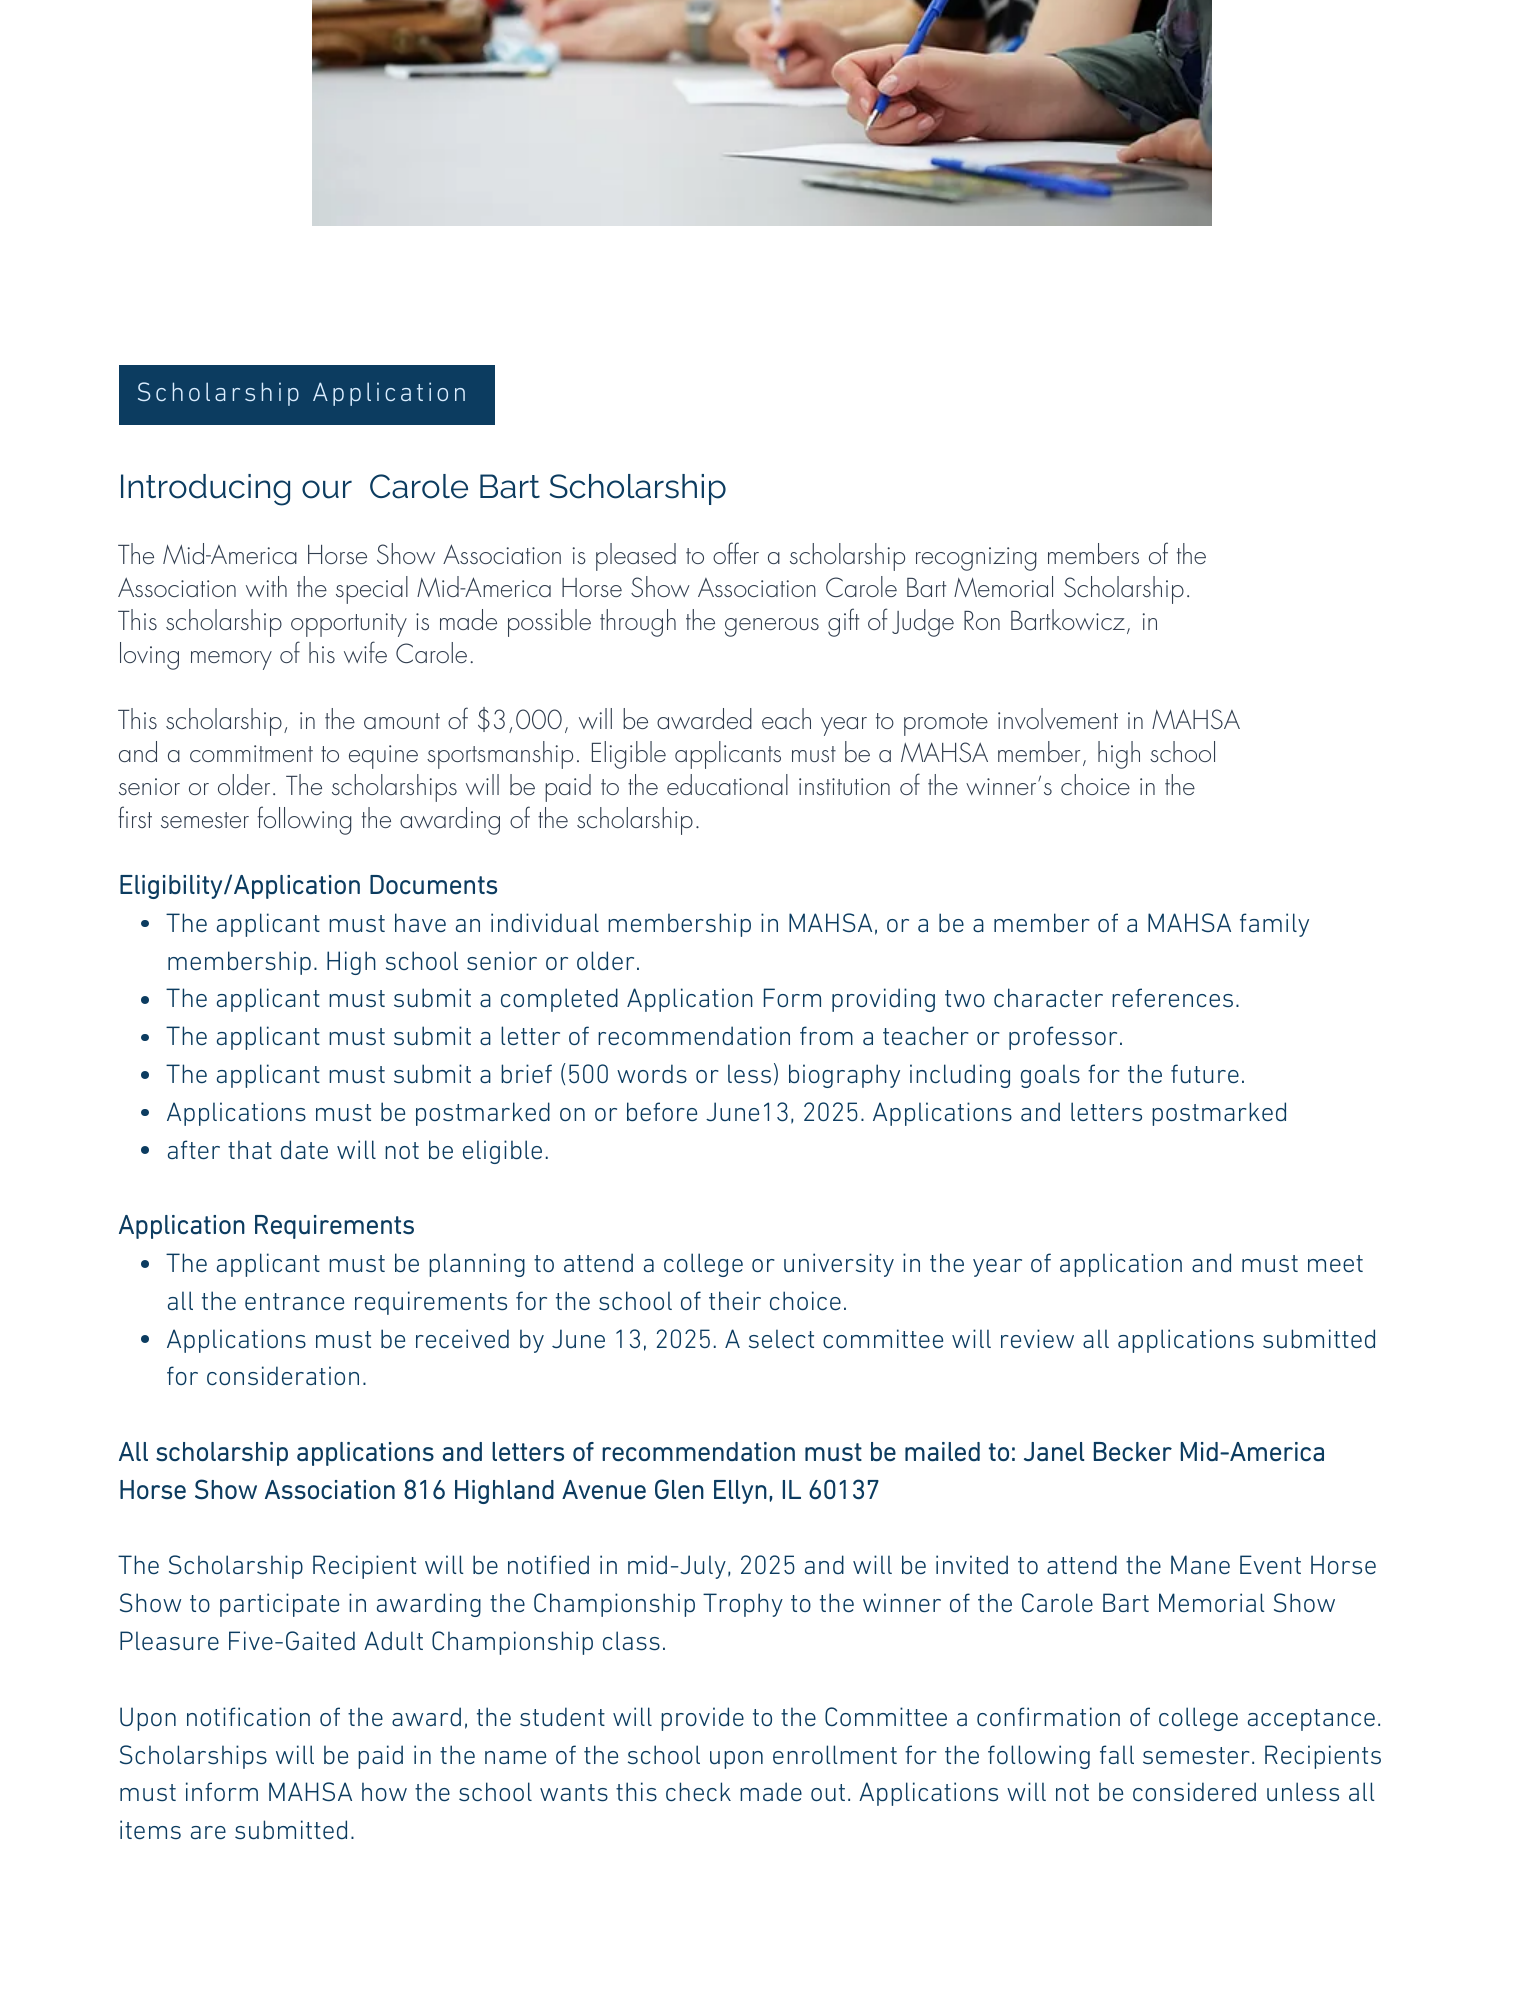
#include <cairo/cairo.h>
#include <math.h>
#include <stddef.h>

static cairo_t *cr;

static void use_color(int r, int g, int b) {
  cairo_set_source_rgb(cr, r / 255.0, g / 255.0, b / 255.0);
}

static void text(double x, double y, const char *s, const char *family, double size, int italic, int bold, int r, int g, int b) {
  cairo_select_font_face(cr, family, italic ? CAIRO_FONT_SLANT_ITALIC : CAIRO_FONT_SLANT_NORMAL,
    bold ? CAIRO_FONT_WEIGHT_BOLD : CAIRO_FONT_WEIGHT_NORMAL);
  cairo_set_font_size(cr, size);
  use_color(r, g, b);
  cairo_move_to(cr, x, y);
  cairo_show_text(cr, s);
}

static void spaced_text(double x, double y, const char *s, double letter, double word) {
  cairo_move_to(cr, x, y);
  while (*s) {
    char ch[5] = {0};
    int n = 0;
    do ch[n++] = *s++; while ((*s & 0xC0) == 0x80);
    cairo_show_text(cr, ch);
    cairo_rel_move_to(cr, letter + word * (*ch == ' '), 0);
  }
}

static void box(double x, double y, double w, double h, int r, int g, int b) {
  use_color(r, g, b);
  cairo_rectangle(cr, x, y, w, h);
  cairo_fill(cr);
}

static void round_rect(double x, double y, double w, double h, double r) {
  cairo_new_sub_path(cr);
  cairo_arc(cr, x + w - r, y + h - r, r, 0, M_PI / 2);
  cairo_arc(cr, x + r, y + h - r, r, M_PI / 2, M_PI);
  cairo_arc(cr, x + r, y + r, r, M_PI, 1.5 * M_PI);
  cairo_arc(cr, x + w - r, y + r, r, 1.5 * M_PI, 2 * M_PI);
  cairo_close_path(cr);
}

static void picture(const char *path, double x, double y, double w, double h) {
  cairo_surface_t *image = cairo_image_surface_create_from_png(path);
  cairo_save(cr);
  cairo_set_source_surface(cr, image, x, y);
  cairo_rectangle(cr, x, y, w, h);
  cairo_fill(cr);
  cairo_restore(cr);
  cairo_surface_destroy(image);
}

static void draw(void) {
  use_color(255, 255, 255);
  cairo_paint(cr);
  picture("img_01.png", 312, 0, 900, 226);
  box(119, 365, 376, 60, 12, 60, 96);
  round_rect(141, 920, 8, 7, 3.5);
  cairo_fill(cr);
  cairo_arc(cr, 145, 1000, 4, 0, 2 * M_PI);
  cairo_fill(cr);
  round_rect(141, 1034, 8, 7, 3.5);
  cairo_fill(cr);
  cairo_arc(cr, 145, 1075, 4, 0, 2 * M_PI);
  cairo_fill(cr);
  round_rect(141, 1109, 8, 7, 3.5);
  cairo_fill(cr);
  cairo_arc(cr, 145, 1150, 4, 0, 2 * M_PI);
  cairo_fill(cr);
  cairo_arc(cr, 145, 1264, 4, 0, 2 * M_PI);
  cairo_fill(cr);
  cairo_arc(cr, 145, 1339, 4, 0, 2 * M_PI);
  cairo_fill(cr);
  cairo_select_font_face(cr, "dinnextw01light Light", CAIRO_FONT_SLANT_NORMAL, CAIRO_FONT_WEIGHT_NORMAL);
  cairo_set_font_size(cr, 27);
  use_color(218, 237, 255);
  spaced_text(136, 401, "Scholarship Application", 2.7, 0);
  text(118, 498, "Introducing our  Carole Bart Scholarship", "Raleway", 33, 0, 0, 12, 60, 96);
  text(118, 564, "The Mid-America Horse Show Association is pleased to offer a scholarship recognizing members of the", "futura Light", 25.5, 0, 0, 49, 62, 79);
  text(118, 597, "Association with the special Mid-America Horse Show Association Carole Bart Memorial Scholarship.", "futura Light", 25.5, 0, 0, 49, 62, 79);
  text(118, 630, "This scholarship opportunity is made possible through the generous gift of Judge Ron Bartkowicz, in", "futura Light", 25.5, 0, 0, 49, 62, 79);
  text(118, 663, "loving memory of his wife Carole.", "futura Light", 25.5, 0, 0, 49, 62, 79);
  text(118, 729, "This scholarship, in the amount of $3,000, will be awarded each year to promote involvement in MAHSA", "futura Light", 25.5, 0, 0, 49, 62, 79);
  text(118, 762, "and a commitment to equine sportsmanship. Eligible applicants must be a MAHSA member, high school", "futura Light", 25.5, 0, 0, 49, 62, 79);
  text(118, 795, "senior or older. The scholarships will be paid to the educational institution of the winner’s choice in the", "futura Light", 25.5, 0, 0, 49, 62, 79);
  text(118, 828, "first semester following the awarding of the scholarship.", "futura Light", 25.5, 0, 0, 49, 62, 79);
  text(118, 894, "Eligibility/Application Documents", "dinnextw01light", 27, 0, 1, 12, 60, 96);
  text(166, 932, "The applicant must have an individual membership in MAHSA, or a be a member of a MAHSA family", "dinnextw01light Light", 27, 0, 0, 12, 60, 96);
  text(166, 970, "membership. High school senior or older.", "dinnextw01light Light", 27, 0, 0, 12, 60, 96);
  text(166, 1007, "The applicant must submit a completed Application Form providing two character references.", "dinnextw01light Light", 27, 0, 0, 12, 60, 96);
  text(166, 1045, "The applicant must submit a letter of recommendation from a teacher or professor.", "dinnextw01light Light", 27, 0, 0, 12, 60, 96);
  text(166, 1083, "The applicant must submit a brief (500 words or less) biography including goals for the future.", "dinnextw01light Light", 27, 0, 0, 12, 60, 96);
  text(166, 1121, "Applications must be postmarked on or before June13, 2025. Applications and letters postmarked", "dinnextw01light Light", 27, 0, 0, 12, 60, 96);
  text(166, 1159, "after that date will not be eligible.", "dinnextw01light Light", 27, 0, 0, 12, 60, 96);
  text(118, 1234, "Application Requirements", "dinnextw01light", 27, 0, 1, 12, 60, 96);
  text(166, 1272, "The applicant must be planning to attend a college or university in the year of application and must meet", "dinnextw01light Light", 27, 0, 0, 12, 60, 96);
  text(166, 1310, "all the entrance requirements for the school of their choice.", "dinnextw01light Light", 27, 0, 0, 12, 60, 96);
  text(166, 1348, "Applications must be received by June 13, 2025. A select committee will review all applications submitted", "dinnextw01light Light", 27, 0, 0, 12, 60, 96);
  text(166, 1385, "for consideration.", "dinnextw01light Light", 27, 0, 0, 12, 60, 96);
  text(118, 1461, "All scholarship applications and letters of recommendation must be mailed to: Janel Becker Mid-America", "dinnextw01light", 27, 0, 1, 12, 60, 96);
  text(118, 1499, "Horse Show Association 816 Highland Avenue Glen Ellyn, IL 60137", "dinnextw01light", 27, 0, 1, 12, 60, 96);
  text(118, 1574, "The Scholarship Recipient will be notified in mid-July, 2025 and will be invited to attend the Mane Event Horse", "dinnextw01light Light", 27, 0, 0, 12, 60, 96);
  text(118, 1612, "Show to participate in awarding the Championship Trophy to the winner of the Carole Bart Memorial Show", "dinnextw01light Light", 27, 0, 0, 12, 60, 96);
  text(118, 1650, "Pleasure Five-Gaited Adult Championship class.", "dinnextw01light Light", 27, 0, 0, 12, 60, 96);
  text(118, 1726, "Upon notification of the award, the student will provide to the Committee a confirmation of college acceptance.", "dinnextw01light Light", 27, 0, 0, 12, 60, 96);
  text(118, 1764, "Scholarships will be paid in the name of the school upon enrollment for the following fall semester. Recipients", "dinnextw01light Light", 27, 0, 0, 12, 60, 96);
  text(118, 1801, "must inform MAHSA how the school wants this check made out. Applications will not be considered unless all", "dinnextw01light Light", 27, 0, 0, 12, 60, 96);
  text(118, 1839, "items are submitted.", "dinnextw01light Light", 27, 0, 0, 12, 60, 96);
}

int main(void) {
  cairo_surface_t *surface = cairo_image_surface_create(CAIRO_FORMAT_RGB24, 1513, 2012);
  cr = cairo_create(surface);
  cairo_font_options_t *options = cairo_font_options_create();
  cairo_font_options_set_hint_metrics(options, CAIRO_HINT_METRICS_OFF);
  cairo_font_options_set_hint_style(options, CAIRO_HINT_STYLE_NONE);
  cairo_set_font_options(cr, options);
  cairo_set_miter_limit(cr, 4);
  draw();
  cairo_surface_write_to_png(surface, "out.png");
  cairo_font_options_destroy(options);
  cairo_destroy(cr);
  cairo_surface_destroy(surface);
  return 0;
}
